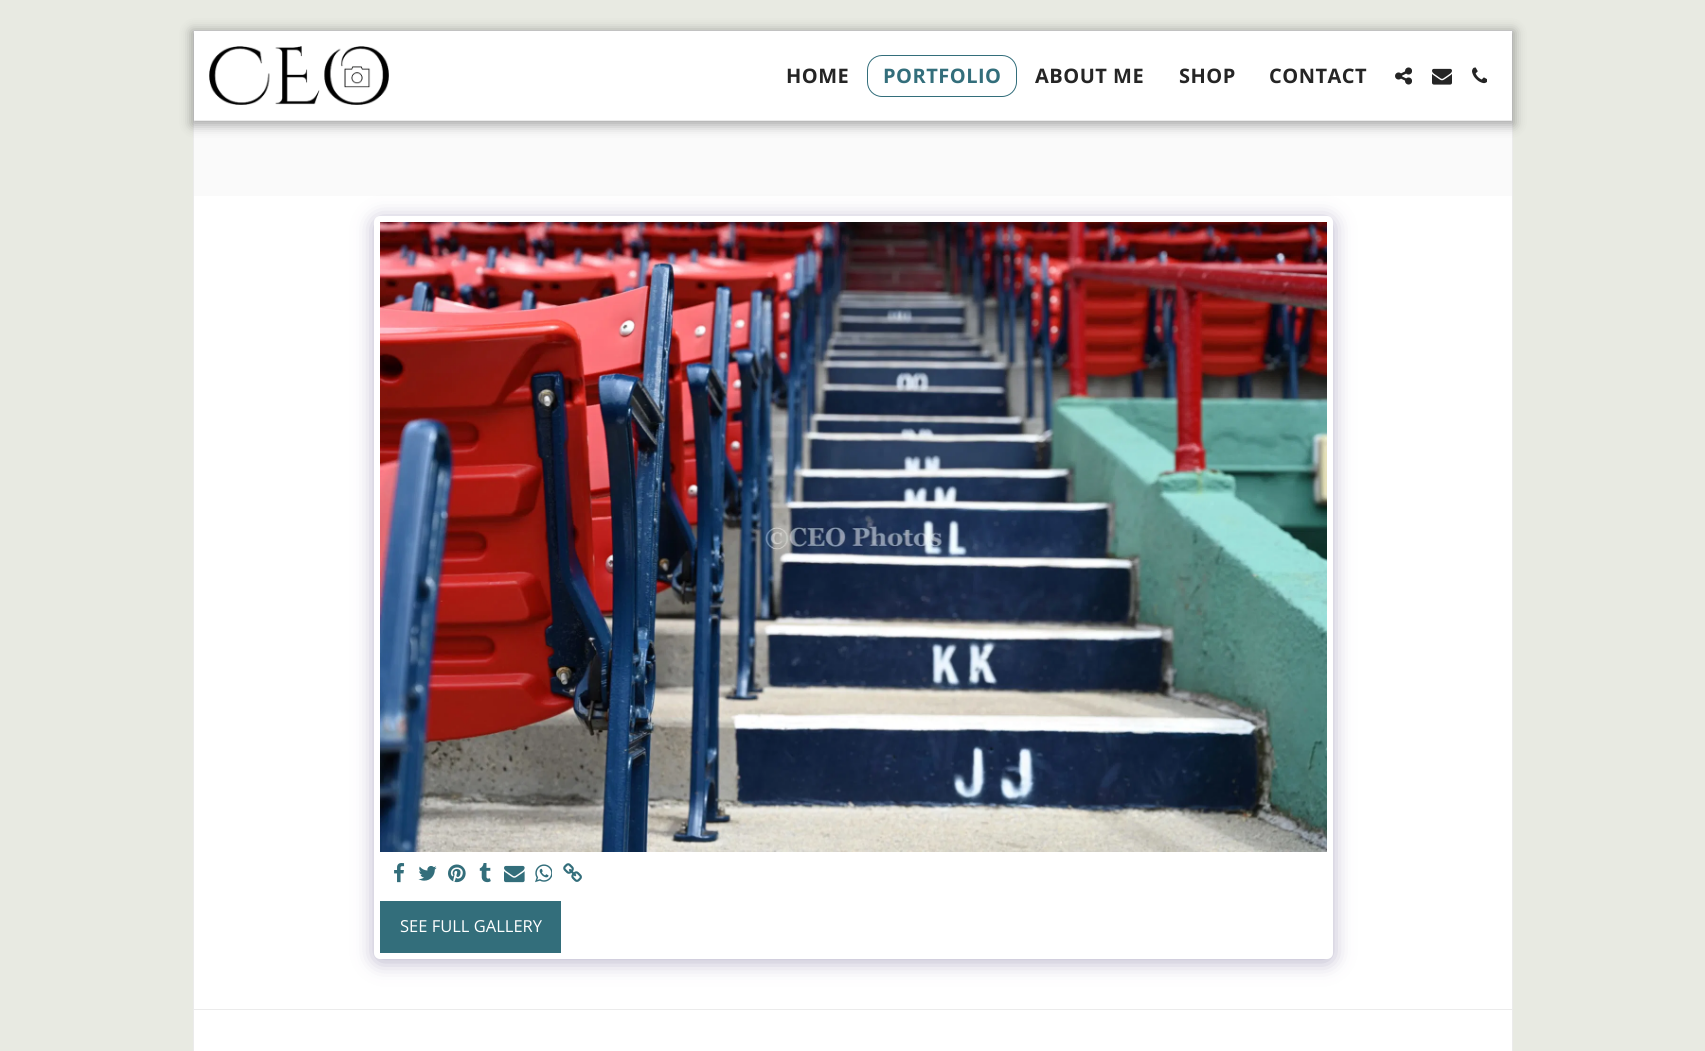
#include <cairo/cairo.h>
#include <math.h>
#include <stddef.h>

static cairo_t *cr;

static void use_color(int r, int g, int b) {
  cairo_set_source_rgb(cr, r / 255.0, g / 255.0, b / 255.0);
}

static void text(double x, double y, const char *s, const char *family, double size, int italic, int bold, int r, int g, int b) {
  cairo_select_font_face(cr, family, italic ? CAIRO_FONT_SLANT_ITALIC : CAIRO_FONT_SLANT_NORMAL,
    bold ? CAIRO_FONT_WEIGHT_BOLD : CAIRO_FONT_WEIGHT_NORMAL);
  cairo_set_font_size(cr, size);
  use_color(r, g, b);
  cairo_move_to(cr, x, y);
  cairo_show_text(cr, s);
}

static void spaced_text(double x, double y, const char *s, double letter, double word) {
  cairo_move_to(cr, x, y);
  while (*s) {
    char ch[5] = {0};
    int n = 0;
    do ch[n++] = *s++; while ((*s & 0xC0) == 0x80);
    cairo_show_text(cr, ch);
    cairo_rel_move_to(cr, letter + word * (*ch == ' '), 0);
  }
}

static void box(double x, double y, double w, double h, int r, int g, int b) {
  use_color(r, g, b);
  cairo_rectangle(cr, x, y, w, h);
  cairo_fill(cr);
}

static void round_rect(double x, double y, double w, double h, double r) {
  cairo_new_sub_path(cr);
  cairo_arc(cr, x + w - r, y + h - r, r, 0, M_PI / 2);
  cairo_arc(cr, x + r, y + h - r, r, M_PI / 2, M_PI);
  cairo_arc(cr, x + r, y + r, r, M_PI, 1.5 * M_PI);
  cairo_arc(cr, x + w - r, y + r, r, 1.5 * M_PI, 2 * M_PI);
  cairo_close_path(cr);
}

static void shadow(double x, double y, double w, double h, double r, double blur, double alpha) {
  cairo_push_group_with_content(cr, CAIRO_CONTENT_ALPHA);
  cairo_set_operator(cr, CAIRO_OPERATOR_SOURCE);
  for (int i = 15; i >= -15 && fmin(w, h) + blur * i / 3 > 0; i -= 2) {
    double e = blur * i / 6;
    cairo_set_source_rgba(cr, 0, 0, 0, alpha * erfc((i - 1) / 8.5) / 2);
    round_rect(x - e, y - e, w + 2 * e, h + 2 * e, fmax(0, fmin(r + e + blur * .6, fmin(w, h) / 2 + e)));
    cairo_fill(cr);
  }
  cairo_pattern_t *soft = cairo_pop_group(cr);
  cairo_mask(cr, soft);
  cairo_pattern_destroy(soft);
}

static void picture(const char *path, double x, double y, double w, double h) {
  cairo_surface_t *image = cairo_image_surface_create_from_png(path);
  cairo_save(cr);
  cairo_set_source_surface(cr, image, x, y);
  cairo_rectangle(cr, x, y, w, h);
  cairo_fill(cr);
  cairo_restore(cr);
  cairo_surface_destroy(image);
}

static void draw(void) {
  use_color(232, 234, 226);
  cairo_paint(cr);
  cairo_rectangle(cr, 193.5, 30.5, 1319, 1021);
  use_color(235, 235, 235);
  cairo_set_line_width(cr, 1);
  cairo_stroke(cr);
  box(194, 121, 1318, 75, 250, 250, 250);
  use_color(0, 0, 0);
  shadow(192, 31, 1322, 94, 0, 6, 0.35);
  box(194, 31, 1318, 89, 255, 255, 255);
  box(194, 120, 1318, 1, 235, 235, 235);
  picture("img_01.png", 209, 46, 180, 59);
  round_rect(867.5, 55.5, 149, 41, 14.5);
  use_color(51, 110, 123);
  cairo_stroke(cr);
  picture("img_02.png", 1395, 67, 17, 18);
  picture("img_03.png", 1432, 68, 20, 17);
  picture("img_04.png", 1472, 67, 15, 17);
  box(194, 196, 1318, 813, 255, 255, 255);
  use_color(77, 63, 122);
  shadow(374, 219, 959, 743, 6, 10, 0.4);
  use_color(255, 255, 255);
  round_rect(374, 216, 959, 743, 6);
  cairo_fill(cr);
  picture("img_05.png", 380, 222, 947, 630);
  picture("img_06.png", 394, 863, 11, 20);
  picture("img_07.png", 418, 866, 19, 15);
  picture("img_08.png", 448, 864, 18, 19);
  picture("img_09.png", 479, 863, 12, 20);
  picture("img_10.png", 504, 865, 21, 18);
  picture("img_11.png", 535, 864, 17, 19);
  picture("img_12.png", 563, 863, 19, 19);
  box(380, 901, 181, 52, 51, 110, 123);
  box(194, 1010, 1318, 41, 255, 255, 255);
  box(194, 1009, 1318, 1, 235, 235, 235);
  cairo_select_font_face(cr, "Open Sans", CAIRO_FONT_SLANT_NORMAL, CAIRO_FONT_WEIGHT_BOLD);
  cairo_set_font_size(cr, 20);
  use_color(37, 37, 37);
  spaced_text(786, 83, "HOME", 0.5, 0);
  use_color(51, 110, 123);
  spaced_text(883, 83, "PORTFOLIO", 0.5, 0);
  use_color(37, 37, 37);
  spaced_text(1035, 83, "ABOUT ME", 0.5, 0);
  spaced_text(1179, 83, "SHOP", 0.5, 0);
  spaced_text(1269, 83, "CONTACT", 0.5, 0);
  text(400, 932, "SEE FULL GALLERY", "Open Sans", 16.5, 0, 0, 255, 255, 255);
}

int main(void) {
  cairo_surface_t *surface = cairo_image_surface_create(CAIRO_FORMAT_RGB24, 1705, 1051);
  cr = cairo_create(surface);
  cairo_font_options_t *options = cairo_font_options_create();
  cairo_font_options_set_hint_metrics(options, CAIRO_HINT_METRICS_OFF);
  cairo_font_options_set_hint_style(options, CAIRO_HINT_STYLE_NONE);
  cairo_set_font_options(cr, options);
  cairo_set_miter_limit(cr, 4);
  draw();
  cairo_surface_write_to_png(surface, "out.png");
  cairo_font_options_destroy(options);
  cairo_destroy(cr);
  cairo_surface_destroy(surface);
  return 0;
}
